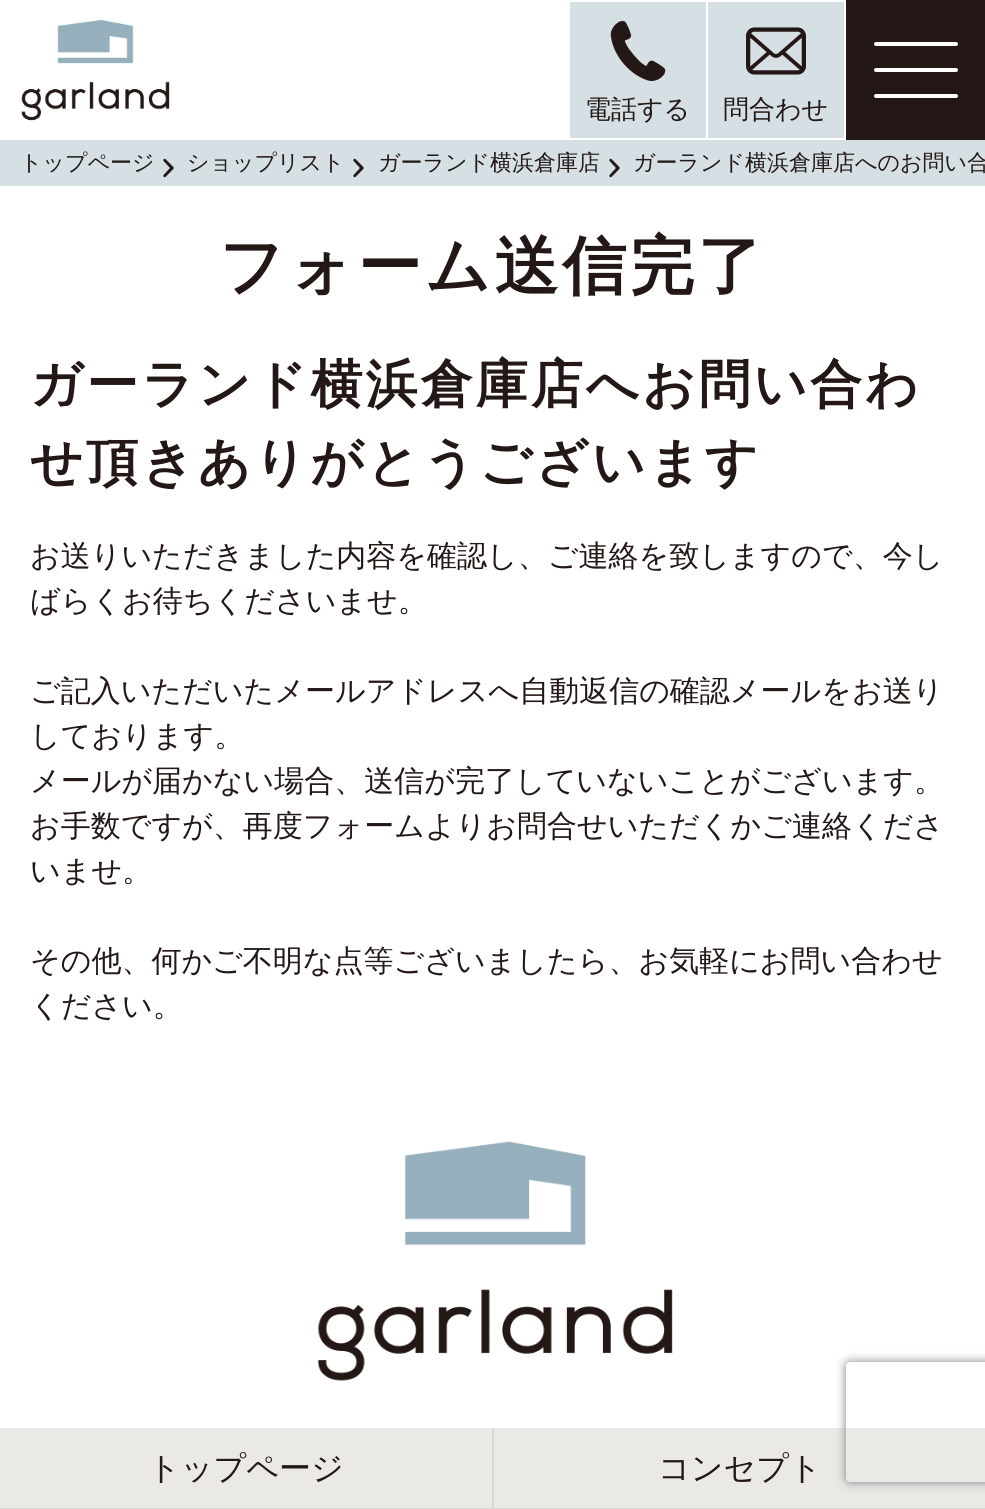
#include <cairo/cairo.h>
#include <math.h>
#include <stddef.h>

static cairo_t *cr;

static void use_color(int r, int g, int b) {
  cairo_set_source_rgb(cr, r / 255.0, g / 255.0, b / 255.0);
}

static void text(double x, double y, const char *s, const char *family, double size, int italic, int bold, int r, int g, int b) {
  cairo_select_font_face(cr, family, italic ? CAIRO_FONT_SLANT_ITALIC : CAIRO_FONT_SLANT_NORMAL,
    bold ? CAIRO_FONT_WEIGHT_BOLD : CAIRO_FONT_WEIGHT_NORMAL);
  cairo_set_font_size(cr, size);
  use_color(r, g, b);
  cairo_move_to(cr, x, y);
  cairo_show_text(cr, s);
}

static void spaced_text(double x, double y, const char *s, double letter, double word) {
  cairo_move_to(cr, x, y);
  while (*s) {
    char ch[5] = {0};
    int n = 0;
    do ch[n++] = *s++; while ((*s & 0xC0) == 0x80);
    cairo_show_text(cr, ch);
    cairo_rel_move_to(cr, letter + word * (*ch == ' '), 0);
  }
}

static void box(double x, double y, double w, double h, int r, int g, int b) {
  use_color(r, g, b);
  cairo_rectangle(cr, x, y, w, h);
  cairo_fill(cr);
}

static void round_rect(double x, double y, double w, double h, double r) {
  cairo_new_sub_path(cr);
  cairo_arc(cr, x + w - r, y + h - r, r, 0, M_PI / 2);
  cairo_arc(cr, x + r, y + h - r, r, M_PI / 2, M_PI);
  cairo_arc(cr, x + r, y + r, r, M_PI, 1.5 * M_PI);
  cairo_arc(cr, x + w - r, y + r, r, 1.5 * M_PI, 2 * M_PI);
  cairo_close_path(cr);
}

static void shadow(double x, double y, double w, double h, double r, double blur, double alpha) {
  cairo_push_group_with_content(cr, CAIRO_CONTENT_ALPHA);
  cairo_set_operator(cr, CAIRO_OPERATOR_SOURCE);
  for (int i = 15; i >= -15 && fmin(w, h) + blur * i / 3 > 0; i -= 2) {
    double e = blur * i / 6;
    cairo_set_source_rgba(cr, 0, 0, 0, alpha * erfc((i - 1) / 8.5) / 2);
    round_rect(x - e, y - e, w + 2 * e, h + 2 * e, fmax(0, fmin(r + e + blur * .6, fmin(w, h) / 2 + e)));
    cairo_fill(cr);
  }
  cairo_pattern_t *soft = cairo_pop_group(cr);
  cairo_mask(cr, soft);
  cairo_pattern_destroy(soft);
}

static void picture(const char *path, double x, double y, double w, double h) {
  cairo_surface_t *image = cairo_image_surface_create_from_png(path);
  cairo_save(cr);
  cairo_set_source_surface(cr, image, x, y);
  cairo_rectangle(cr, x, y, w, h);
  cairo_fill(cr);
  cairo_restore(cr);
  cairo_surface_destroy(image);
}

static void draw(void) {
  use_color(255, 255, 255);
  cairo_paint(cr);
  picture("img_01.png", 21, 19, 149, 102);
  box(570, 2, 136, 136, 214, 223, 228);
  picture("img_02.png", 610, 21, 56, 60);
  box(708, 2, 136, 136, 214, 223, 228);
  picture("img_03.png", 746, 27, 60, 48);
  box(846, 0, 139, 140, 35, 24, 21);
  use_color(255, 255, 255);
  round_rect(874, 42, 84, 4, 2);
  cairo_fill(cr);
  round_rect(874, 68, 84, 4, 2);
  cairo_fill(cr);
  round_rect(874, 94, 84, 4, 2);
  cairo_fill(cr);
  box(0, 140, 985, 46, 213, 223, 228);
  picture("img_04.png", 163, 158, 11, 20);
  picture("img_04.png", 353, 158, 11, 20);
  picture("img_04.png", 609, 158, 11, 20);
  picture("img_05.png", 317, 1141, 356, 240);
  box(0, 1428, 985, 80, 235, 233, 229);
  box(492, 1428, 2, 81, 218, 216, 212);
  box(0, 1508, 985, 1, 218, 216, 212);
  cairo_save(cr);
  cairo_set_fill_rule(cr, CAIRO_FILL_RULE_EVEN_ODD);
  cairo_new_path(cr);
  cairo_move_to(cr, 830, 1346);
  cairo_line_to(cr, 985, 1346);
  cairo_line_to(cr, 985, 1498);
  cairo_line_to(cr, 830, 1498);
  cairo_close_path(cr);
  cairo_move_to(cr, 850, 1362);
  cairo_line_to(cr, 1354, 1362);
  cairo_curve_to(cr, 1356, 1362, 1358, 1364, 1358, 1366);
  cairo_line_to(cr, 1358, 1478);
  cairo_curve_to(cr, 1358, 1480, 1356, 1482, 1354, 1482);
  cairo_line_to(cr, 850, 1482);
  cairo_curve_to(cr, 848, 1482, 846, 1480, 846, 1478);
  cairo_line_to(cr, 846, 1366);
  cairo_curve_to(cr, 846, 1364, 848, 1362, 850, 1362);
  cairo_close_path(cr);
  cairo_clip(cr);
  use_color(128, 128, 128);
  shadow(846, 1362, 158, 120, 4, 5, 1);
  cairo_restore(cr);
  text(585, 118, "電話する", "WenQuanYi Zen Hei Medium", 26, 0, 0, 35, 24, 21);
  text(723, 118, "問合わせ", "WenQuanYi Zen Hei Medium", 26, 0, 0, 35, 24, 21);
  text(20, 170, "トップページ", "WenQuanYi Zen Hei Medium", 22, 0, 0, 35, 24, 21);
  text(187, 170, "ショップリスト", "WenQuanYi Zen Hei Medium", 22, 0, 0, 35, 24, 21);
  text(378, 170, "ガーランド横浜倉庫店", "WenQuanYi Zen Hei Medium", 22, 0, 0, 35, 24, 21);
  text(633, 170, "ガーランド横浜倉庫店へのお問い合", "WenQuanYi Zen Hei Medium", 22, 0, 0, 35, 24, 21);
  cairo_select_font_face(cr, "WenQuanYi Zen Hei", CAIRO_FONT_SLANT_NORMAL, CAIRO_FONT_WEIGHT_BOLD);
  cairo_set_font_size(cr, 64);
  spaced_text(219, 288, "フォーム送信完了", 3.75, 0);
  cairo_set_font_size(cr, 52);
  spaced_text(30, 402, "ガーランド横浜倉庫店へお問い合わ", 3.1, 0);
  spaced_text(30, 480, "せ頂きありがとうございます", 3.1, 0);
  text(30, 566, "お送りいただきました内容を確認し、ご連絡を致しますので、今し", "WenQuanYi Zen Hei Medium", 30, 0, 0, 35, 24, 21);
  text(30, 611, "ばらくお待ちくださいませ。", "WenQuanYi Zen Hei Medium", 30, 0, 0, 35, 24, 21);
  text(30, 701, "ご記入いただいたメールアドレスへ自動返信の確認メールをお送り", "WenQuanYi Zen Hei Medium", 30, 0, 0, 35, 24, 21);
  text(30, 746, "しております。", "WenQuanYi Zen Hei Medium", 30, 0, 0, 35, 24, 21);
  text(30, 791, "メールが届かない場合、送信が完了していないことがございます。", "WenQuanYi Zen Hei Medium", 30, 0, 0, 35, 24, 21);
  text(30, 836, "お手数ですが、再度フォームよりお問合せいただくかご連絡くださ", "WenQuanYi Zen Hei Medium", 30, 0, 0, 35, 24, 21);
  text(30, 881, "いませ。", "WenQuanYi Zen Hei Medium", 30, 0, 0, 35, 24, 21);
  text(30, 971, "その他、何かご不明な点等ございましたら、お気軽にお問い合わせ", "WenQuanYi Zen Hei Medium", 30, 0, 0, 35, 24, 21);
  text(30, 1016, "ください。", "WenQuanYi Zen Hei Medium", 30, 0, 0, 35, 24, 21);
  text(148, 1479, "トップページ", "WenQuanYi Zen Hei Medium", 32, 0, 0, 35, 24, 21);
  text(658, 1479, "コンセプト", "WenQuanYi Zen Hei Medium", 32, 0, 0, 35, 24, 21);
}

int main(void) {
  cairo_surface_t *surface = cairo_image_surface_create(CAIRO_FORMAT_RGB24, 985, 1509);
  cr = cairo_create(surface);
  cairo_font_options_t *options = cairo_font_options_create();
  cairo_font_options_set_hint_metrics(options, CAIRO_HINT_METRICS_OFF);
  cairo_font_options_set_hint_style(options, CAIRO_HINT_STYLE_NONE);
  cairo_set_font_options(cr, options);
  cairo_set_miter_limit(cr, 4);
  draw();
  cairo_surface_write_to_png(surface, "out.png");
  cairo_font_options_destroy(options);
  cairo_destroy(cr);
  cairo_surface_destroy(surface);
  return 0;
}
